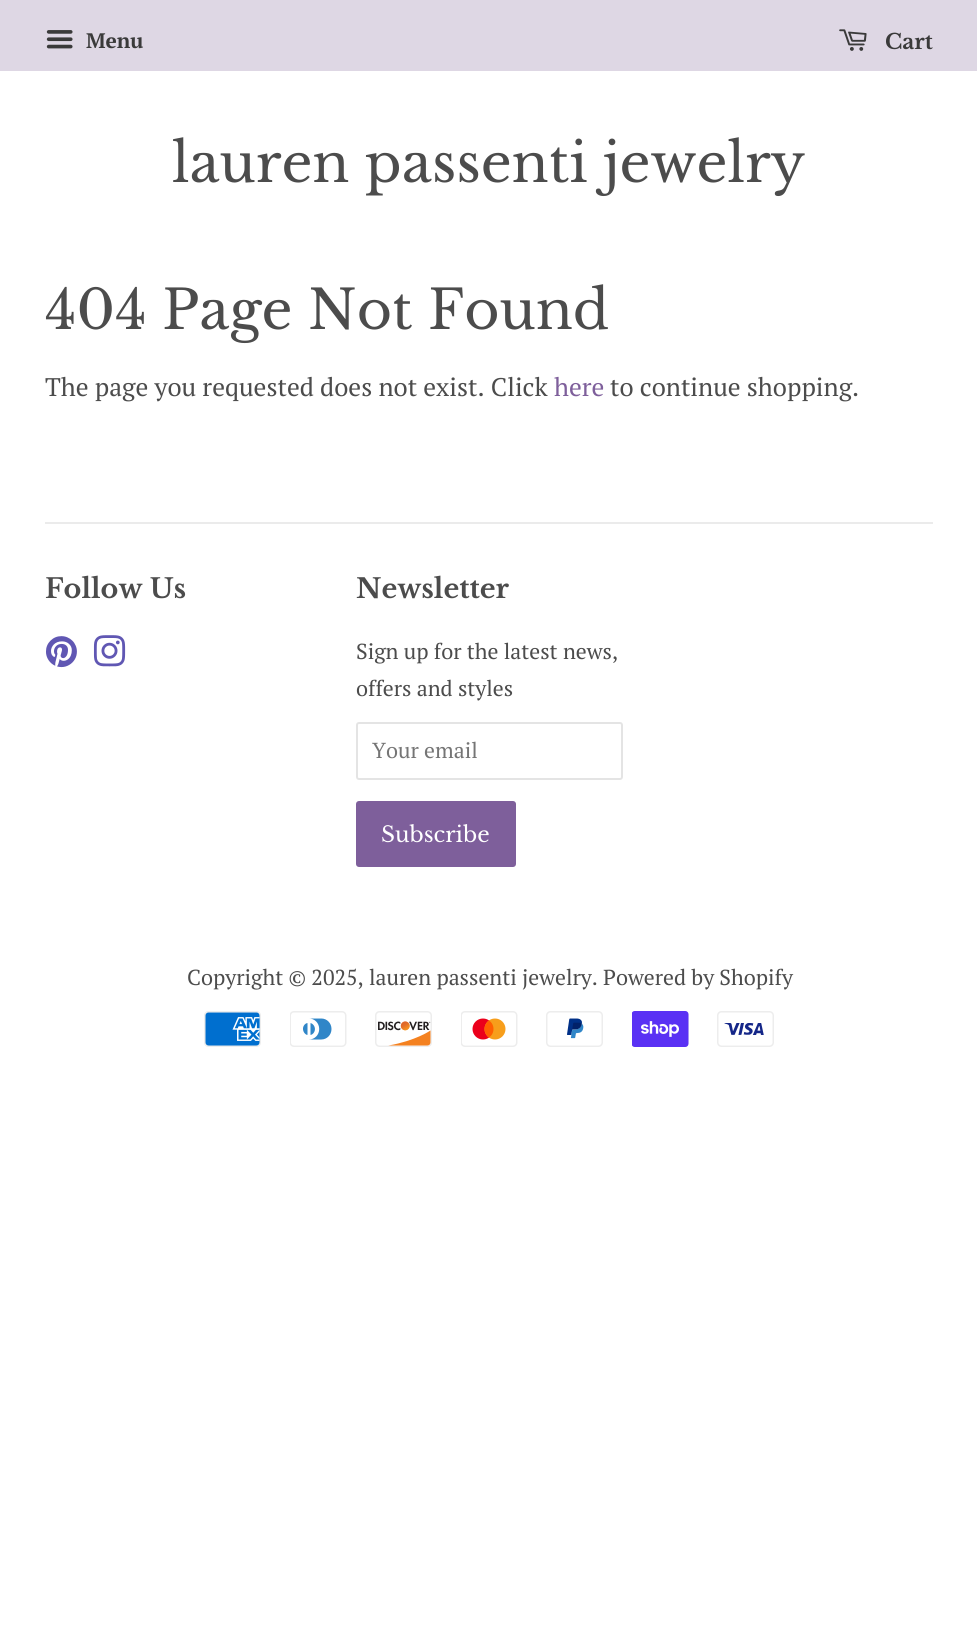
#include <cairo/cairo.h>
#include <math.h>
#include <stddef.h>

static cairo_t *cr;

static void use_color(int r, int g, int b) {
  cairo_set_source_rgb(cr, r / 255.0, g / 255.0, b / 255.0);
}

static void text(double x, double y, const char *s, const char *family, double size, int italic, int bold, int r, int g, int b) {
  cairo_select_font_face(cr, family, italic ? CAIRO_FONT_SLANT_ITALIC : CAIRO_FONT_SLANT_NORMAL,
    bold ? CAIRO_FONT_WEIGHT_BOLD : CAIRO_FONT_WEIGHT_NORMAL);
  cairo_set_font_size(cr, size);
  use_color(r, g, b);
  cairo_move_to(cr, x, y);
  cairo_show_text(cr, s);
}

static void box(double x, double y, double w, double h, int r, int g, int b) {
  use_color(r, g, b);
  cairo_rectangle(cr, x, y, w, h);
  cairo_fill(cr);
}

static void round_rect(double x, double y, double w, double h, double r) {
  cairo_new_sub_path(cr);
  cairo_arc(cr, x + w - r, y + h - r, r, 0, M_PI / 2);
  cairo_arc(cr, x + r, y + h - r, r, M_PI / 2, M_PI);
  cairo_arc(cr, x + r, y + r, r, M_PI, 1.5 * M_PI);
  cairo_arc(cr, x + w - r, y + r, r, 1.5 * M_PI, 2 * M_PI);
  cairo_close_path(cr);
}

static void picture(const char *path, double x, double y, double w, double h) {
  cairo_surface_t *image = cairo_image_surface_create_from_png(path);
  cairo_save(cr);
  cairo_set_source_surface(cr, image, x, y);
  cairo_rectangle(cr, x, y, w, h);
  cairo_fill(cr);
  cairo_restore(cr);
  cairo_surface_destroy(image);
}

static void draw(void) {
  use_color(255, 255, 255);
  cairo_paint(cr);
  box(0, 0, 977, 71, 222, 215, 228);
  picture("img_01.png", 46, 30, 27, 19);
  picture("img_02.png", 839, 29, 28, 22);
  box(45, 522, 888, 2, 235, 235, 235);
  picture("img_03.png", 46, 636, 31, 32);
  picture("img_04.png", 93, 635, 33, 32);
  round_rect(357, 723, 265, 56, 2);
  use_color(228, 228, 228);
  cairo_stroke(cr);
  use_color(126, 95, 155);
  round_rect(356, 801, 160, 66, 3);
  cairo_fill(cr);
  picture("img_05.png", 204, 1011, 57, 36);
  picture("img_06.png", 290, 1011, 57, 36);
  picture("img_07.png", 375, 1011, 57, 36);
  picture("img_08.png", 461, 1011, 57, 36);
  picture("img_09.png", 546, 1011, 57, 36);
  picture("img_10.png", 632, 1011, 57, 36);
  picture("img_11.png", 717, 1011, 57, 36);
  text(86, 48, "Menu", "PT Serif", 21, 0, 1, 58, 58, 58);
  text(885, 49, "Cart", "Libre Baskerville", 21, 0, 1, 58, 58, 58);
  text(172, 182, "lauren passenti jewelry", "Libre Baskerville", 54, 0, 0, 76, 76, 76);
  text(45, 329, "404 Page Not Found", "Libre Baskerville", 54, 0, 0, 76, 76, 76);
  text(45, 396, "The page you requested does not exist. Click", "PT Serif", 25.5, 0, 0, 76, 76, 76);
  text(554, 396, "here", "PT Serif", 25.5, 0, 0, 126, 95, 155);
  text(610, 396, "to continue shopping.", "PT Serif", 25.5, 0, 0, 76, 76, 76);
  text(45, 598, "Follow Us", "Libre Baskerville", 27, 0, 1, 76, 76, 76);
  text(356, 598, "Newsletter", "Libre Baskerville", 27, 0, 1, 76, 76, 76);
  text(356, 659, "Sign up for the latest news,", "PT Serif", 21.7, 0, 0, 76, 76, 76);
  text(356, 696, "offers and styles", "PT Serif", 21.7, 0, 0, 76, 76, 76);
  text(372, 758, "Your email", "PT Serif", 21.7, 0, 0, 117, 117, 117);
  text(381, 842, "Subscribe", "Libre Baskerville", 21.7, 0, 0, 255, 255, 255);
  text(187, 985, "Copyright © 2025, lauren passenti jewelry. Powered by Shopify", "PT Serif", 21.7, 0, 0, 76, 76, 76);
}

int main(void) {
  cairo_surface_t *surface = cairo_image_surface_create(CAIRO_FORMAT_RGB24, 977, 1637);
  cr = cairo_create(surface);
  cairo_font_options_t *options = cairo_font_options_create();
  cairo_font_options_set_hint_metrics(options, CAIRO_HINT_METRICS_OFF);
  cairo_font_options_set_hint_style(options, CAIRO_HINT_STYLE_NONE);
  cairo_set_font_options(cr, options);
  cairo_set_miter_limit(cr, 4);
  draw();
  cairo_surface_write_to_png(surface, "out.png");
  cairo_font_options_destroy(options);
  cairo_destroy(cr);
  cairo_surface_destroy(surface);
  return 0;
}
